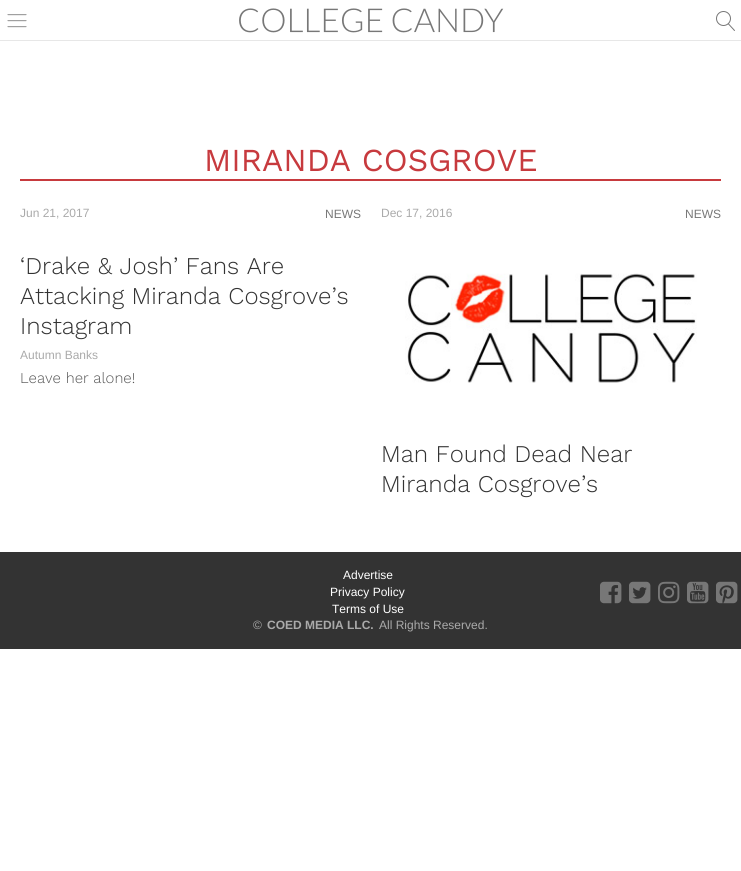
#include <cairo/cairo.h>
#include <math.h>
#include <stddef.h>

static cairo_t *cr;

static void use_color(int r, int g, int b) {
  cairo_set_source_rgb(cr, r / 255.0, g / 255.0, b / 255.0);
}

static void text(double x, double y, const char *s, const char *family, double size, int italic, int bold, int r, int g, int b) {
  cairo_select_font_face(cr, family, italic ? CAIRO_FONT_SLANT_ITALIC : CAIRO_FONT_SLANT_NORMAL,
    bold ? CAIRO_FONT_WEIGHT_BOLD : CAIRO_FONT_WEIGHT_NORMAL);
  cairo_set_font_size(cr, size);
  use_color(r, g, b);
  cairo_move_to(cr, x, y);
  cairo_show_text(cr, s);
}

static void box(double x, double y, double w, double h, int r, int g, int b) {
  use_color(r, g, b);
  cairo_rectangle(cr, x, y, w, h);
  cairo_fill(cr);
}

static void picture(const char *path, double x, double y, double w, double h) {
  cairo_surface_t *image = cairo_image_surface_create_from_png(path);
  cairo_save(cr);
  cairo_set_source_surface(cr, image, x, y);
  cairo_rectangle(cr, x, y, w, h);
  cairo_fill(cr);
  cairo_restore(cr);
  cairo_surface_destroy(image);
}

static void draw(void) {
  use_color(255, 255, 255);
  cairo_paint(cr);
  box(0, 40, 741, 1, 231, 231, 231);
  picture("img_01.png", 7, 14, 20, 14);
  picture("img_02.png", 239, 8, 265, 25);
  picture("img_03.png", 716, 11, 19, 20);
  box(20, 179, 701, 2, 199, 58, 62);
  picture("img_04.png", 405, 273, 292, 110);
  box(0, 552, 741, 97, 51, 51, 51);
  picture("img_05.png", 600, 581, 22, 23);
  picture("img_06.png", 629, 581, 22, 23);
  picture("img_07.png", 658, 581, 22, 23);
  picture("img_08.png", 687, 581, 22, 23);
  picture("img_09.png", 716, 581, 22, 23);
  text(204, 171, "MIRANDA COSGROVE", "Work Sans", 32, 0, 0, 199, 58, 62);
  text(20, 217, "Jun 21, 2017", "Liberation Sans", 12, 0, 0, 170, 170, 170);
  text(325, 218, "NEWS", "Liberation Sans", 12, 0, 0, 119, 119, 119);
  text(20, 274, "‘Drake & Josh’ Fans Are", "Work Sans Light", 24, 0, 0, 51, 51, 51);
  text(20, 304, "Attacking Miranda Cosgrove’s", "Work Sans Light", 24, 0, 0, 51, 51, 51);
  text(20, 334, "Instagram", "Work Sans Light", 24, 0, 0, 51, 51, 51);
  text(20, 359, "Autumn Banks", "Liberation Sans", 12, 0, 0, 170, 170, 170);
  text(20, 383, "Leave her alone!", "Work Sans Light", 15, 0, 0, 85, 85, 85);
  text(381, 217, "Dec 17, 2016", "Liberation Sans", 12, 0, 0, 170, 170, 170);
  text(685, 218, "NEWS", "Liberation Sans", 12, 0, 0, 119, 119, 119);
  text(381, 462, "Man Found Dead Near", "Work Sans Light", 24, 0, 0, 51, 51, 51);
  text(381, 492, "Miranda Cosgrove’s", "Work Sans Light", 24, 0, 0, 51, 51, 51);
  text(343, 579, "Advertise", "Liberation Sans", 12, 0, 0, 255, 255, 255);
  text(330, 596, "Privacy Policy", "Liberation Sans", 12, 0, 0, 255, 255, 255);
  text(332, 613, "Terms of Use", "Liberation Sans", 12, 0, 0, 255, 255, 255);
  text(253, 629, "©", "Liberation Sans", 12, 0, 0, 170, 170, 170);
  text(267, 629, "COED MEDIA LLC.", "Liberation Sans", 12, 0, 1, 170, 170, 170);
  text(379, 629, "All Rights Reserved.", "Liberation Sans", 12, 0, 0, 170, 170, 170);
}

int main(void) {
  cairo_surface_t *surface = cairo_image_surface_create(CAIRO_FORMAT_RGB24, 741, 871);
  cr = cairo_create(surface);
  cairo_font_options_t *options = cairo_font_options_create();
  cairo_font_options_set_hint_metrics(options, CAIRO_HINT_METRICS_OFF);
  cairo_font_options_set_hint_style(options, CAIRO_HINT_STYLE_NONE);
  cairo_set_font_options(cr, options);
  cairo_set_miter_limit(cr, 4);
  draw();
  cairo_surface_write_to_png(surface, "out.png");
  cairo_font_options_destroy(options);
  cairo_destroy(cr);
  cairo_surface_destroy(surface);
  return 0;
}
